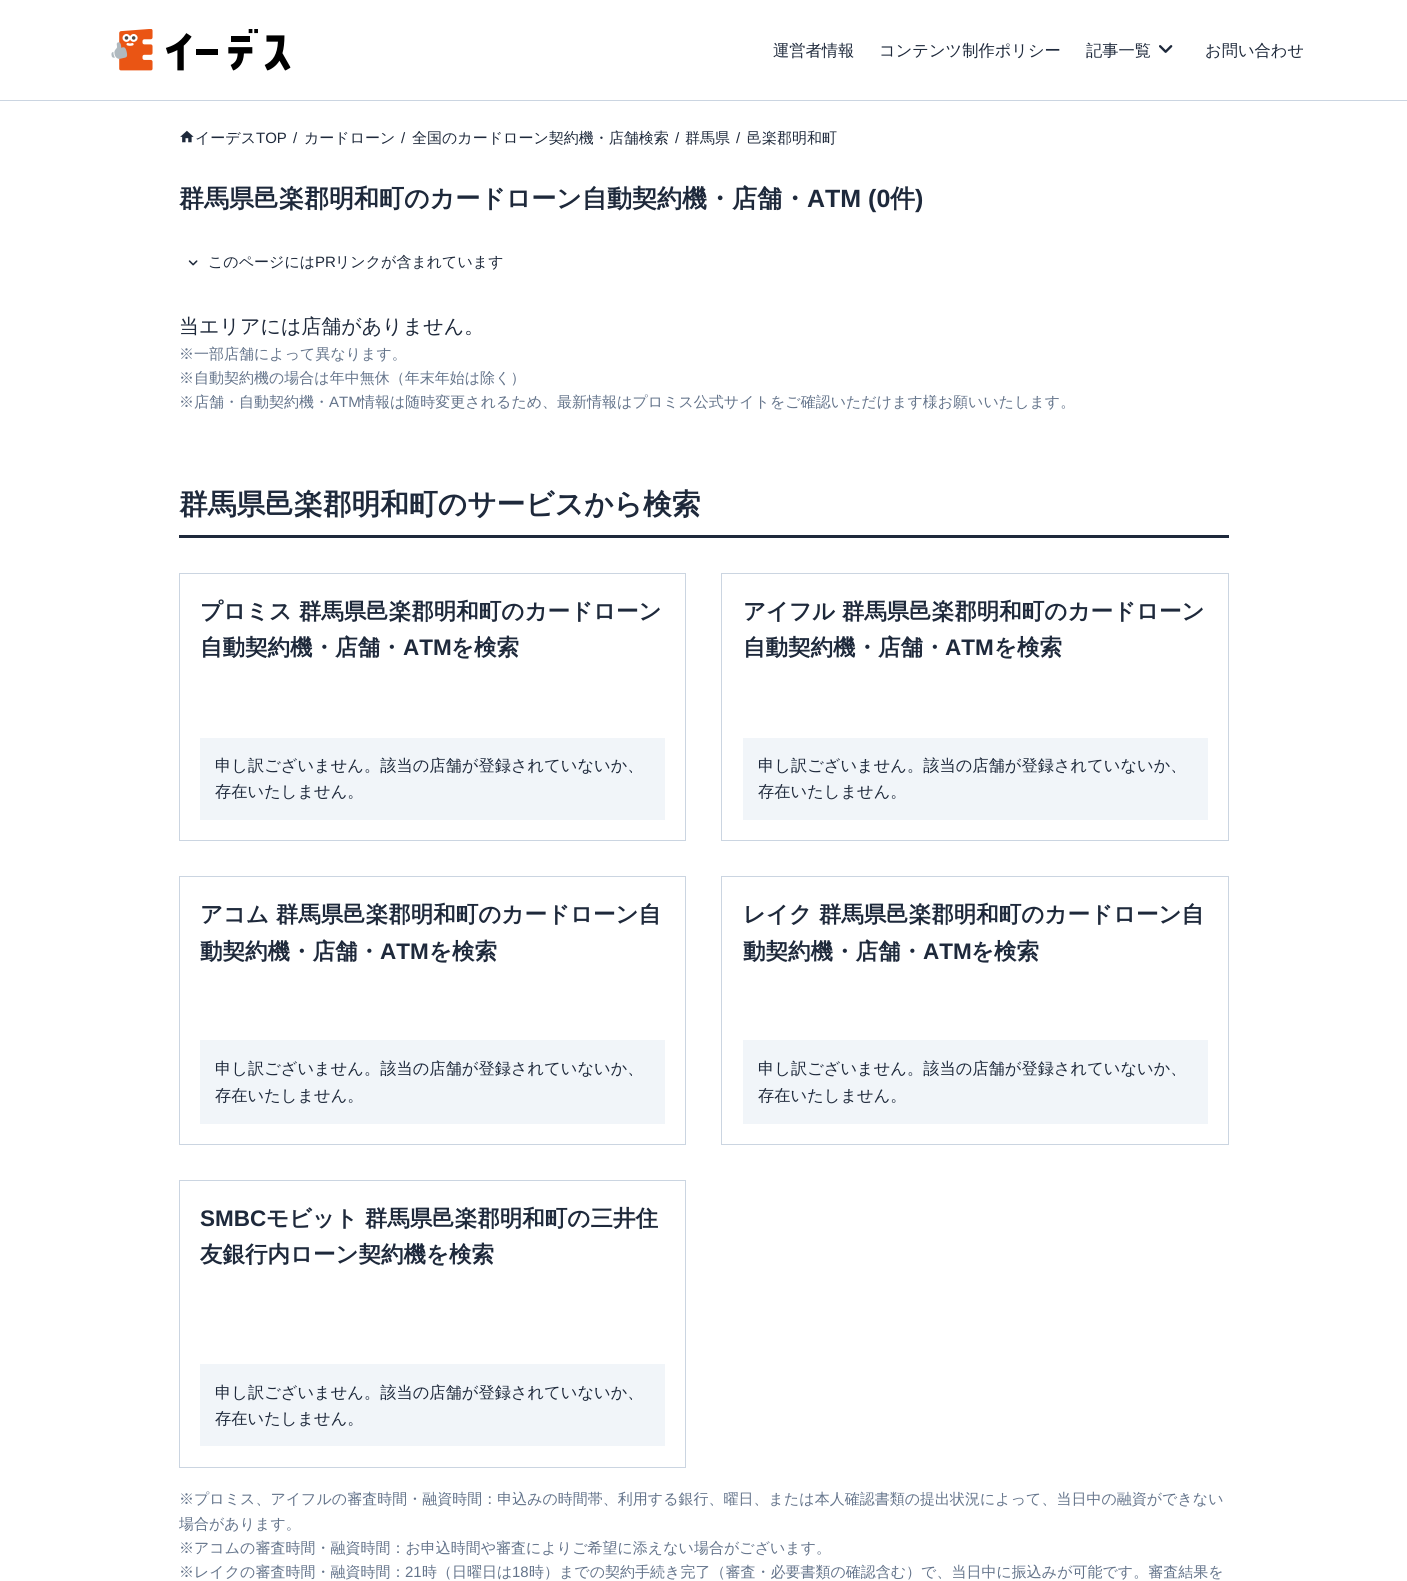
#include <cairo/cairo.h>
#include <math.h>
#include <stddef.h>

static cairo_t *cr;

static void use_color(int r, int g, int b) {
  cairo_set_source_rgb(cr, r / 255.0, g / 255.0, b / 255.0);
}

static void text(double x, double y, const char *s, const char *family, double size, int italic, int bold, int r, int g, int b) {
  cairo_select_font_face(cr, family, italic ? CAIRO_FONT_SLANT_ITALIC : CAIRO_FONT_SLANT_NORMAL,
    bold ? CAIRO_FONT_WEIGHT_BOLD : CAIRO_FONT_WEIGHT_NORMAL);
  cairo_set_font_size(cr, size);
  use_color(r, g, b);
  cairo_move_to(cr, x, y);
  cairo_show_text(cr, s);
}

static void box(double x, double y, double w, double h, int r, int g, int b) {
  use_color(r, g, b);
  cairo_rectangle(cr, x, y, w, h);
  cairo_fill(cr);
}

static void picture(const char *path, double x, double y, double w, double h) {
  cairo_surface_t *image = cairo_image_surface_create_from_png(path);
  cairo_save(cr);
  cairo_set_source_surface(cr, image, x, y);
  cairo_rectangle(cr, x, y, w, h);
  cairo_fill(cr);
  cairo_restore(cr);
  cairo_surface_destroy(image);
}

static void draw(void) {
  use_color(255, 255, 255);
  cairo_paint(cr);
  box(0, 100, 1407, 1, 203, 213, 225);
  picture("img_01.png", 111, 29, 180, 42);
  picture("img_02.png", 1159, 45, 14, 8);
  picture("img_03.png", 180, 130, 14, 13);
  picture("img_04.png", 188, 260, 10, 6);
  box(179, 535, 1050, 3, 30, 41, 59);
  cairo_rectangle(cr, 179.5, 573.5, 506, 267);
  use_color(203, 213, 225);
  cairo_set_line_width(cr, 1);
  cairo_stroke(cr);
  box(200, 738, 465, 82, 241, 245, 249);
  cairo_rectangle(cr, 721.5, 573.5, 507, 267);
  use_color(203, 213, 225);
  cairo_stroke(cr);
  box(743, 738, 465, 82, 241, 245, 249);
  cairo_rectangle(cr, 179.5, 876.5, 506, 268);
  use_color(203, 213, 225);
  cairo_stroke(cr);
  box(200, 1040, 465, 84, 241, 245, 249);
  cairo_rectangle(cr, 721.5, 876.5, 507, 268);
  use_color(203, 213, 225);
  cairo_stroke(cr);
  box(743, 1040, 465, 84, 241, 245, 249);
  cairo_rectangle(cr, 179.5, 1180.5, 506, 287);
  use_color(203, 213, 225);
  cairo_stroke(cr);
  box(200, 1364, 465, 82, 241, 245, 249);
  text(773, 56, "運営者情報", "WenQuanYi Zen Hei Medium", 16.25, 0, 0, 30, 41, 59);
  text(879, 56, "コンテンツ制作ポリシー", "WenQuanYi Zen Hei Medium", 16.25, 0, 0, 30, 41, 59);
  text(1086, 56, "記事一覧", "WenQuanYi Zen Hei Medium", 16.25, 0, 0, 30, 41, 59);
  text(1205, 56, "お問い合わせ", "WenQuanYi Zen Hei Medium", 16.25, 0, 0, 30, 41, 59);
  text(195, 143, "イーデス", "WenQuanYi Zen Hei Medium", 15, 0, 0, 30, 41, 59);
  text(256, 143, "TOP", "Liberation Sans", 15, 0, 0, 30, 41, 59);
  text(293, 143, "/", "Liberation Sans", 15, 0, 0, 30, 41, 59);
  text(304, 143, "カードローン", "WenQuanYi Zen Hei Medium", 15, 0, 0, 30, 41, 59);
  text(401, 143, "/", "Liberation Sans", 15, 0, 0, 30, 41, 59);
  text(412, 143, "全国のカードローン契約機・店舗検索", "WenQuanYi Zen Hei Medium", 15, 0, 0, 30, 41, 59);
  text(675, 143, "/", "Liberation Sans", 15, 0, 0, 30, 41, 59);
  text(685, 143, "群馬県", "WenQuanYi Zen Hei Medium", 15, 0, 0, 30, 41, 59);
  text(736, 143, "/", "Liberation Sans", 15, 0, 0, 30, 41, 59);
  text(747, 143, "邑楽郡明和町", "WenQuanYi Zen Hei Medium", 15, 0, 0, 30, 41, 59);
  text(179, 207, "群馬県邑楽郡明和町のカードローン自動契約機・店舗・", "WenQuanYi Zen Hei", 25, 0, 1, 30, 41, 59);
  text(807, 207, "ATM (0", "Liberation Sans", 25, 0, 1, 30, 41, 59);
  text(890, 207, "件", "WenQuanYi Zen Hei", 25, 0, 1, 30, 41, 59);
  text(915, 207, ")", "Liberation Sans", 25, 0, 1, 30, 41, 59);
  text(208, 267, "このページには", "WenQuanYi Zen Hei Medium", 15, 0, 0, 30, 41, 59);
  text(315, 267, "PR", "Liberation Sans", 15, 0, 0, 30, 41, 59);
  text(335, 267, "リンクが含まれています", "WenQuanYi Zen Hei Medium", 15, 0, 0, 30, 41, 59);
  text(179, 333, "当エリアには店舗がありません。", "WenQuanYi Zen Hei Medium", 20, 0, 0, 30, 41, 59);
  text(179, 359, "※一部店舗によって異なります。", "WenQuanYi Zen Hei Medium", 15, 0, 0, 100, 116, 139);
  text(179, 383, "※自動契約機の場合は年中無休（年末年始は除く）", "WenQuanYi Zen Hei Medium", 15, 0, 0, 100, 116, 139);
  text(179, 407, "※店舗・自動契約機・", "WenQuanYi Zen Hei Medium", 15, 0, 0, 100, 116, 139);
  text(329, 407, "ATM", "Liberation Sans", 15, 0, 0, 100, 116, 139);
  text(360, 407, "情報は随時変更されるため、最新情報はプロミス公式サイトをご確認いただけます様お願いいたします。", "WenQuanYi Zen Hei Medium", 15, 0, 0, 100, 116, 139);
  text(179, 514, "群馬県邑楽郡明和町のサービスから検索", "WenQuanYi Zen Hei", 28.75, 0, 1, 30, 41, 59);
  text(200, 619, "プロミス 群馬県邑楽郡明和町のカードローン", "WenQuanYi Zen Hei", 22.5, 0, 1, 30, 41, 59);
  text(200, 655, "自動契約機・店舗・", "WenQuanYi Zen Hei", 22.5, 0, 1, 30, 41, 59);
  text(403, 655, "ATM", "Liberation Sans", 22.5, 0, 1, 30, 41, 59);
  text(451, 655, "を検索", "WenQuanYi Zen Hei", 22.5, 0, 1, 30, 41, 59);
  text(215, 771, "申し訳ございません。該当の店舗が登録されていないか、", "WenQuanYi Zen Hei Medium", 16.25, 0, 0, 30, 41, 59);
  text(215, 797, "存在いたしません。", "WenQuanYi Zen Hei Medium", 16.25, 0, 0, 30, 41, 59);
  text(743, 619, "アイフル 群馬県邑楽郡明和町のカードローン", "WenQuanYi Zen Hei", 22.5, 0, 1, 30, 41, 59);
  text(743, 655, "自動契約機・店舗・", "WenQuanYi Zen Hei", 22.5, 0, 1, 30, 41, 59);
  text(945, 655, "ATM", "Liberation Sans", 22.5, 0, 1, 30, 41, 59);
  text(994, 655, "を検索", "WenQuanYi Zen Hei", 22.5, 0, 1, 30, 41, 59);
  text(758, 771, "申し訳ございません。該当の店舗が登録されていないか、", "WenQuanYi Zen Hei Medium", 16.25, 0, 0, 30, 41, 59);
  text(758, 797, "存在いたしません。", "WenQuanYi Zen Hei Medium", 16.25, 0, 0, 30, 41, 59);
  text(200, 922, "アコム 群馬県邑楽郡明和町のカードローン自", "WenQuanYi Zen Hei", 22.5, 0, 1, 30, 41, 59);
  text(200, 959, "動契約機・店舗・", "WenQuanYi Zen Hei", 22.5, 0, 1, 30, 41, 59);
  text(380, 959, "ATM", "Liberation Sans", 22.5, 0, 1, 30, 41, 59);
  text(429, 959, "を検索", "WenQuanYi Zen Hei", 22.5, 0, 1, 30, 41, 59);
  text(215, 1074, "申し訳ございません。該当の店舗が登録されていないか、", "WenQuanYi Zen Hei Medium", 16.25, 0, 0, 30, 41, 59);
  text(215, 1101, "存在いたしません。", "WenQuanYi Zen Hei Medium", 16.25, 0, 0, 30, 41, 59);
  text(743, 922, "レイク 群馬県邑楽郡明和町のカードローン自", "WenQuanYi Zen Hei", 22.5, 0, 1, 30, 41, 59);
  text(743, 959, "動契約機・店舗・", "WenQuanYi Zen Hei", 22.5, 0, 1, 30, 41, 59);
  text(923, 959, "ATM", "Liberation Sans", 22.5, 0, 1, 30, 41, 59);
  text(971, 959, "を検索", "WenQuanYi Zen Hei", 22.5, 0, 1, 30, 41, 59);
  text(758, 1074, "申し訳ございません。該当の店舗が登録されていないか、", "WenQuanYi Zen Hei Medium", 16.25, 0, 0, 30, 41, 59);
  text(758, 1101, "存在いたしません。", "WenQuanYi Zen Hei Medium", 16.25, 0, 0, 30, 41, 59);
  text(200, 1226, "SMBC", "Liberation Sans", 22.5, 0, 1, 30, 41, 59);
  text(266, 1226, "モビット 群馬県邑楽郡明和町の三井住", "WenQuanYi Zen Hei", 22.5, 0, 1, 30, 41, 59);
  text(200, 1262, "友銀行内ローン契約機を検索", "WenQuanYi Zen Hei", 22.5, 0, 1, 30, 41, 59);
  text(215, 1398, "申し訳ございません。該当の店舗が登録されていないか、", "WenQuanYi Zen Hei Medium", 16.25, 0, 0, 30, 41, 59);
  text(215, 1424, "存在いたしません。", "WenQuanYi Zen Hei Medium", 16.25, 0, 0, 30, 41, 59);
  text(179, 1504, "※プロミス、アイフルの審査時間・融資時間：申込みの時間帯、利用する銀行、曜日、または本人確認書類の提出状況によって、当日中の融資ができない", "WenQuanYi Zen Hei Medium", 15, 0, 0, 100, 116, 139);
  text(179, 1529, "場合があります。", "WenQuanYi Zen Hei Medium", 15, 0, 0, 100, 116, 139);
  text(179, 1553, "※アコムの審査時間・融資時間：お申込時間や審査によりご希望に添えない場合がございます。", "WenQuanYi Zen Hei Medium", 15, 0, 0, 100, 116, 139);
  text(179, 1577, "※レイクの審査時間・融資時間：", "WenQuanYi Zen Hei Medium", 15, 0, 0, 100, 116, 139);
  text(405, 1577, "21", "Liberation Sans", 15, 0, 0, 100, 116, 139);
  text(422, 1577, "時（日曜日は", "WenQuanYi Zen Hei Medium", 15, 0, 0, 100, 116, 139);
  text(512, 1577, "18", "Liberation Sans", 15, 0, 0, 100, 116, 139);
  text(529, 1577, "時）までの契約手続き完了（審査・必要書類の確認含む）で、当日中に振込みが可能です。審査結果を", "WenQuanYi Zen Hei Medium", 15, 0, 0, 100, 116, 139);
}

int main(void) {
  cairo_surface_t *surface = cairo_image_surface_create(CAIRO_FORMAT_RGB24, 1407, 1581);
  cr = cairo_create(surface);
  cairo_font_options_t *options = cairo_font_options_create();
  cairo_font_options_set_hint_metrics(options, CAIRO_HINT_METRICS_OFF);
  cairo_font_options_set_hint_style(options, CAIRO_HINT_STYLE_NONE);
  cairo_set_font_options(cr, options);
  cairo_set_miter_limit(cr, 4);
  draw();
  cairo_surface_write_to_png(surface, "out.png");
  cairo_font_options_destroy(options);
  cairo_destroy(cr);
  cairo_surface_destroy(surface);
  return 0;
}
